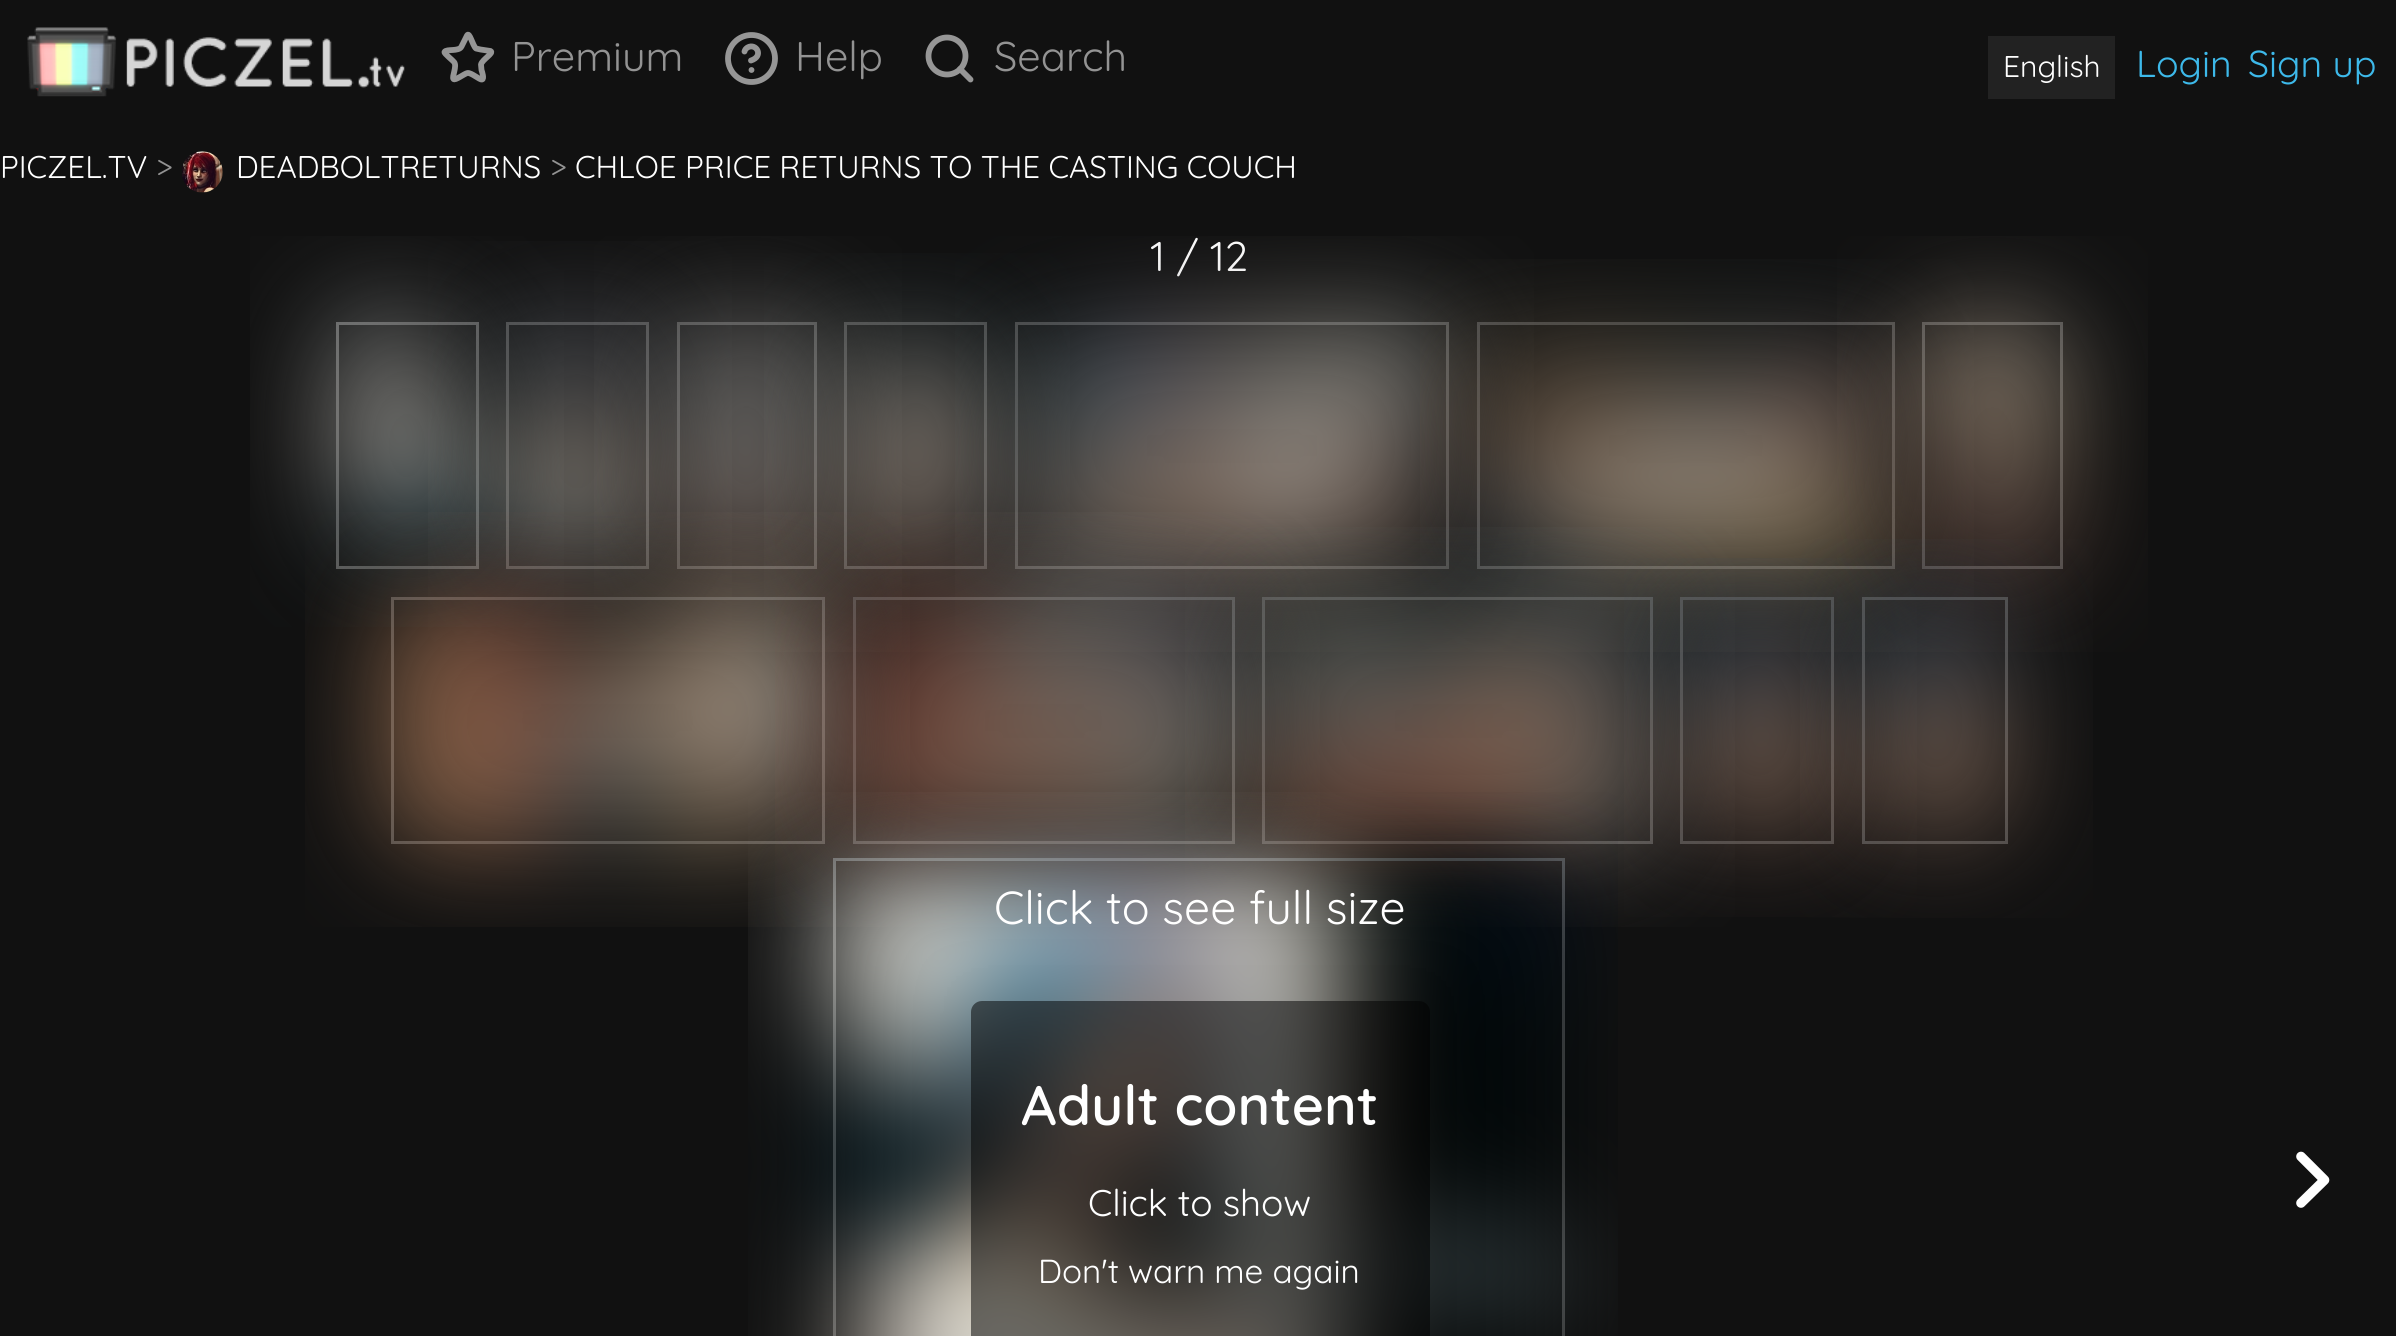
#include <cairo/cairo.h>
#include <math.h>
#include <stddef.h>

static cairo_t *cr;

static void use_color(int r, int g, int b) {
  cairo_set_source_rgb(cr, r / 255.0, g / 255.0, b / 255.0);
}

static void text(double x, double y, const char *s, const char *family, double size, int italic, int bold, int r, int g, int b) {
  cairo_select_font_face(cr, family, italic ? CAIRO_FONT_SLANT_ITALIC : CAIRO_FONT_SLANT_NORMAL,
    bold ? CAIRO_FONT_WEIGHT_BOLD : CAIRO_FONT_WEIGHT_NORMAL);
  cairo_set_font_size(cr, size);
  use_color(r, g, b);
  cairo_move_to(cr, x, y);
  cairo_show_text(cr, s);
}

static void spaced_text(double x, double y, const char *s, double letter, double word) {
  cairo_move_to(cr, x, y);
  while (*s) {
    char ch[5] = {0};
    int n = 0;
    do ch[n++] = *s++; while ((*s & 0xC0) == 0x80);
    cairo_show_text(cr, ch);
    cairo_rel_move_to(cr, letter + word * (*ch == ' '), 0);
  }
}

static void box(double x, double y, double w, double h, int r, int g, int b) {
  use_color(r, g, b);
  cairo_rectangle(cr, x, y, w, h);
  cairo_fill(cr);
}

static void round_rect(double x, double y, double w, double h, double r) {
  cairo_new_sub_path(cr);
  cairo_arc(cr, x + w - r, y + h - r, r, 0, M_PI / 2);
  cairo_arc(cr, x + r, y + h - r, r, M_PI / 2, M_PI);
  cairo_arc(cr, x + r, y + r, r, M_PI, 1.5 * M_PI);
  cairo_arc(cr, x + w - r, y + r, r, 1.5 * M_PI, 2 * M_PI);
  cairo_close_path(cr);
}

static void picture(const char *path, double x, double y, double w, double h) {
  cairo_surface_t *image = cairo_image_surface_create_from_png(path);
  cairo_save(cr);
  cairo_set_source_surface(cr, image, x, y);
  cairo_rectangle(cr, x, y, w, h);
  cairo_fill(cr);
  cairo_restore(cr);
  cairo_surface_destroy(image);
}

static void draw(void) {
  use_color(17, 17, 17);
  cairo_paint(cr);
  picture("img_01.png", 27, 27, 378, 70);
  cairo_new_path(cr);
  cairo_move_to(cr, 467, 35.5);
  cairo_curve_to(cr, 469.5, 31, 472.5, 45.5, 476, 48.5);
  cairo_line_to(cr, 480.5, 49.5);
  cairo_line_to(cr, 490.5, 51);
  cairo_curve_to(cr, 494.5, 53, 482, 59.5, 481, 64.5);
  cairo_line_to(cr, 481.5, 70);
  cairo_curve_to(cr, 482, 71.5, 484.5, 79, 482, 79.5);
  cairo_curve_to(cr, 479.5, 80, 471.5, 72.5, 467.5, 73);
  cairo_curve_to(cr, 464.5, 73.5, 455, 81, 453.5, 79);
  cairo_curve_to(cr, 451.5, 77, 457.5, 66, 454, 62);
  cairo_curve_to(cr, 453, 60.5, 444, 53.5, 444.5, 52);
  cairo_curve_to(cr, 446, 48.5, 459, 52, 461.5, 46.5);
  cairo_close_path(cr);
  use_color(150, 150, 150);
  cairo_set_line_width(cr, 5.8);
  cairo_set_line_cap(cr, CAIRO_LINE_CAP_ROUND);
  cairo_set_line_join(cr, CAIRO_LINE_JOIN_ROUND);
  cairo_stroke(cr);
  cairo_arc(cr, 751.5, 58.5, 23.5, 0, 2 * M_PI);
  cairo_set_line_cap(cr, CAIRO_LINE_CAP_BUTT);
  cairo_set_line_join(cr, CAIRO_LINE_JOIN_MITER);
  cairo_stroke(cr);
  cairo_new_path(cr);
  cairo_move_to(cr, 744.5, 51.5);
  cairo_curve_to(cr, 745, 49.5, 746, 48.5, 747.5, 47.5);
  cairo_curve_to(cr, 756, 42.5, 764.5, 56, 751, 60.5);
  cairo_move_to(cr, 751.5, 70);
  cairo_line_to(cr, 751.5, 70);
  cairo_set_line_cap(cr, CAIRO_LINE_CAP_ROUND);
  cairo_set_line_join(cr, CAIRO_LINE_JOIN_ROUND);
  cairo_stroke(cr);
  cairo_new_path(cr);
  cairo_move_to(cr, 970.5, 79.5);
  cairo_line_to(cr, 960, 69);
  cairo_stroke(cr);
  cairo_arc(cr, 947, 56, 18.5, 0, 2 * M_PI);
  cairo_set_line_cap(cr, CAIRO_LINE_CAP_BUTT);
  cairo_set_line_join(cr, CAIRO_LINE_JOIN_MITER);
  cairo_stroke(cr);
  box(1988, 36, 127, 63, 34, 34, 34);
  picture("img_02.png", 182, 151, 41, 42);
  cairo_rectangle(cr, 337.5, 323.5, 140, 244);
  use_color(102, 102, 102);
  cairo_set_line_width(cr, 3);
  cairo_stroke(cr);
  picture("img_03.png", 250, 236, 314, 391);
  cairo_rectangle(cr, 507.5, 323.5, 140, 244);
  cairo_set_source_rgba(cr, 0.4, 0.4, 0.4, 0.7);
  cairo_stroke(cr);
  picture("img_04.png", 428, 241, 304, 410);
  cairo_rectangle(cr, 678.5, 323.5, 137, 244);
  cairo_stroke(cr);
  picture("img_05.png", 594, 236, 308, 416);
  cairo_rectangle(cr, 845.5, 323.5, 140, 244);
  cairo_stroke(cr);
  picture("img_06.png", 764, 253, 306, 399);
  cairo_rectangle(cr, 1016.5, 323.5, 431, 244);
  cairo_stroke(cr);
  cairo_rectangle(cr, 392.5, 598.5, 431, 244);
  cairo_stroke(cr);
  picture("img_10.png", 305, 512, 605, 415);
  cairo_new_path(cr);
  cairo_move_to(cr, 2301, 1203);
  cairo_line_to(cr, 2324.5, 1180);
  cairo_line_to(cr, 2301, 1156.5);
  use_color(255, 255, 255);
  cairo_set_line_width(cr, 9.6);
  cairo_set_line_cap(cr, CAIRO_LINE_CAP_ROUND);
  cairo_set_line_join(cr, CAIRO_LINE_JOIN_ROUND);
  cairo_stroke(cr);
  text(511, 71, "Premium", "Quicksand", 41.5, 0, 0, 147, 147, 147);
  text(795, 71, "Help", "Quicksand", 41.5, 0, 0, 147, 147, 147);
  text(994, 71, "Search", "Quicksand", 41.5, 0, 0, 147, 147, 147);
  text(2003, 77, "English", "Quicksand", 30, 0, 0, 255, 255, 255);
  text(2136, 77, "Login", "Quicksand", 37.5, 0, 0, 61, 185, 234);
  text(2248, 77, "Sign up", "Quicksand", 37.5, 0, 0, 61, 185, 234);
  text(0, 178, "PICZEL.TV", "Quicksand", 31.4, 0, 0, 255, 255, 255);
  text(156, 178, ">", "Quicksand", 31.4, 0, 0, 147, 147, 147);
  text(236, 178, "DEADBOLTRETURNS", "Quicksand", 31.4, 0, 0, 255, 255, 255);
  text(550, 178, ">", "Quicksand", 31.4, 0, 0, 147, 147, 147);
  use_color(255, 255, 255);
  spaced_text(575, 178, "CHLOE PRICE RETURNS TO THE CASTING COUCH", 0, -0.25);
  text(1150, 271, "1 / 12", "Quicksand", 41.5, 0, 0, 255, 255, 255);
  picture("img_07.png", 955, 236, 579, 416);
  cairo_rectangle(cr, 854.5, 598.5, 379, 244);
  cairo_set_source_rgba(cr, 0.4, 0.4, 0.4, 0.7);
  cairo_set_line_width(cr, 3);
  cairo_set_line_cap(cr, CAIRO_LINE_CAP_BUTT);
  cairo_set_line_join(cr, CAIRO_LINE_JOIN_MITER);
  cairo_stroke(cr);
  picture("img_11.png", 775, 512, 545, 415);
  cairo_rectangle(cr, 1478.5, 323.5, 415, 244);
  cairo_stroke(cr);
  picture("img_08.png", 1420, 259, 554, 393);
  cairo_rectangle(cr, 1263.5, 598.5, 388, 244);
  cairo_stroke(cr);
  picture("img_12.png", 1185, 527, 550, 400);
  cairo_rectangle(cr, 1681.5, 598.5, 151, 244);
  cairo_stroke(cr);
  cairo_rectangle(cr, 1923.5, 323.5, 138, 244);
  cairo_stroke(cr);
  picture("img_09.png", 1837, 236, 311, 416);
  picture("img_13.png", 1624, 558, 293, 359);
  cairo_rectangle(cr, 1863.5, 598.5, 143, 244);
  cairo_stroke(cr);
  picture("img_14.png", 1800, 539, 293, 379);
  cairo_rectangle(cr, 834.5, 859.5, 729, 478);
  use_color(102, 102, 102);
  cairo_stroke(cr);
  picture("img_15.png", 748, 792, 870, 544);
  text(994, 924, "Click to see full size", "Quicksand", 46.25, 0, 0, 255, 255, 255);
  cairo_set_source_rgba(cr, 0, 0, 0, 0.51);
  round_rect(971, 1001, 459, 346, 11);
  cairo_fill(cr);
  text(1021, 1125, "Adult content", "Quicksand SemiBold", 55.5, 0, 0, 255, 255, 255);
  text(1088, 1216, "Click to show", "Quicksand", 37, 0, 0, 255, 255, 255);
  text(1038, 1283, "Don't warn me again", "Quicksand", 33.25, 0, 0, 255, 255, 255);
}

int main(void) {
  cairo_surface_t *surface = cairo_image_surface_create(CAIRO_FORMAT_RGB24, 2396, 1336);
  cr = cairo_create(surface);
  cairo_font_options_t *options = cairo_font_options_create();
  cairo_font_options_set_hint_metrics(options, CAIRO_HINT_METRICS_OFF);
  cairo_font_options_set_hint_style(options, CAIRO_HINT_STYLE_NONE);
  cairo_set_font_options(cr, options);
  cairo_set_miter_limit(cr, 4);
  draw();
  cairo_surface_write_to_png(surface, "out.png");
  cairo_font_options_destroy(options);
  cairo_destroy(cr);
  cairo_surface_destroy(surface);
  return 0;
}
